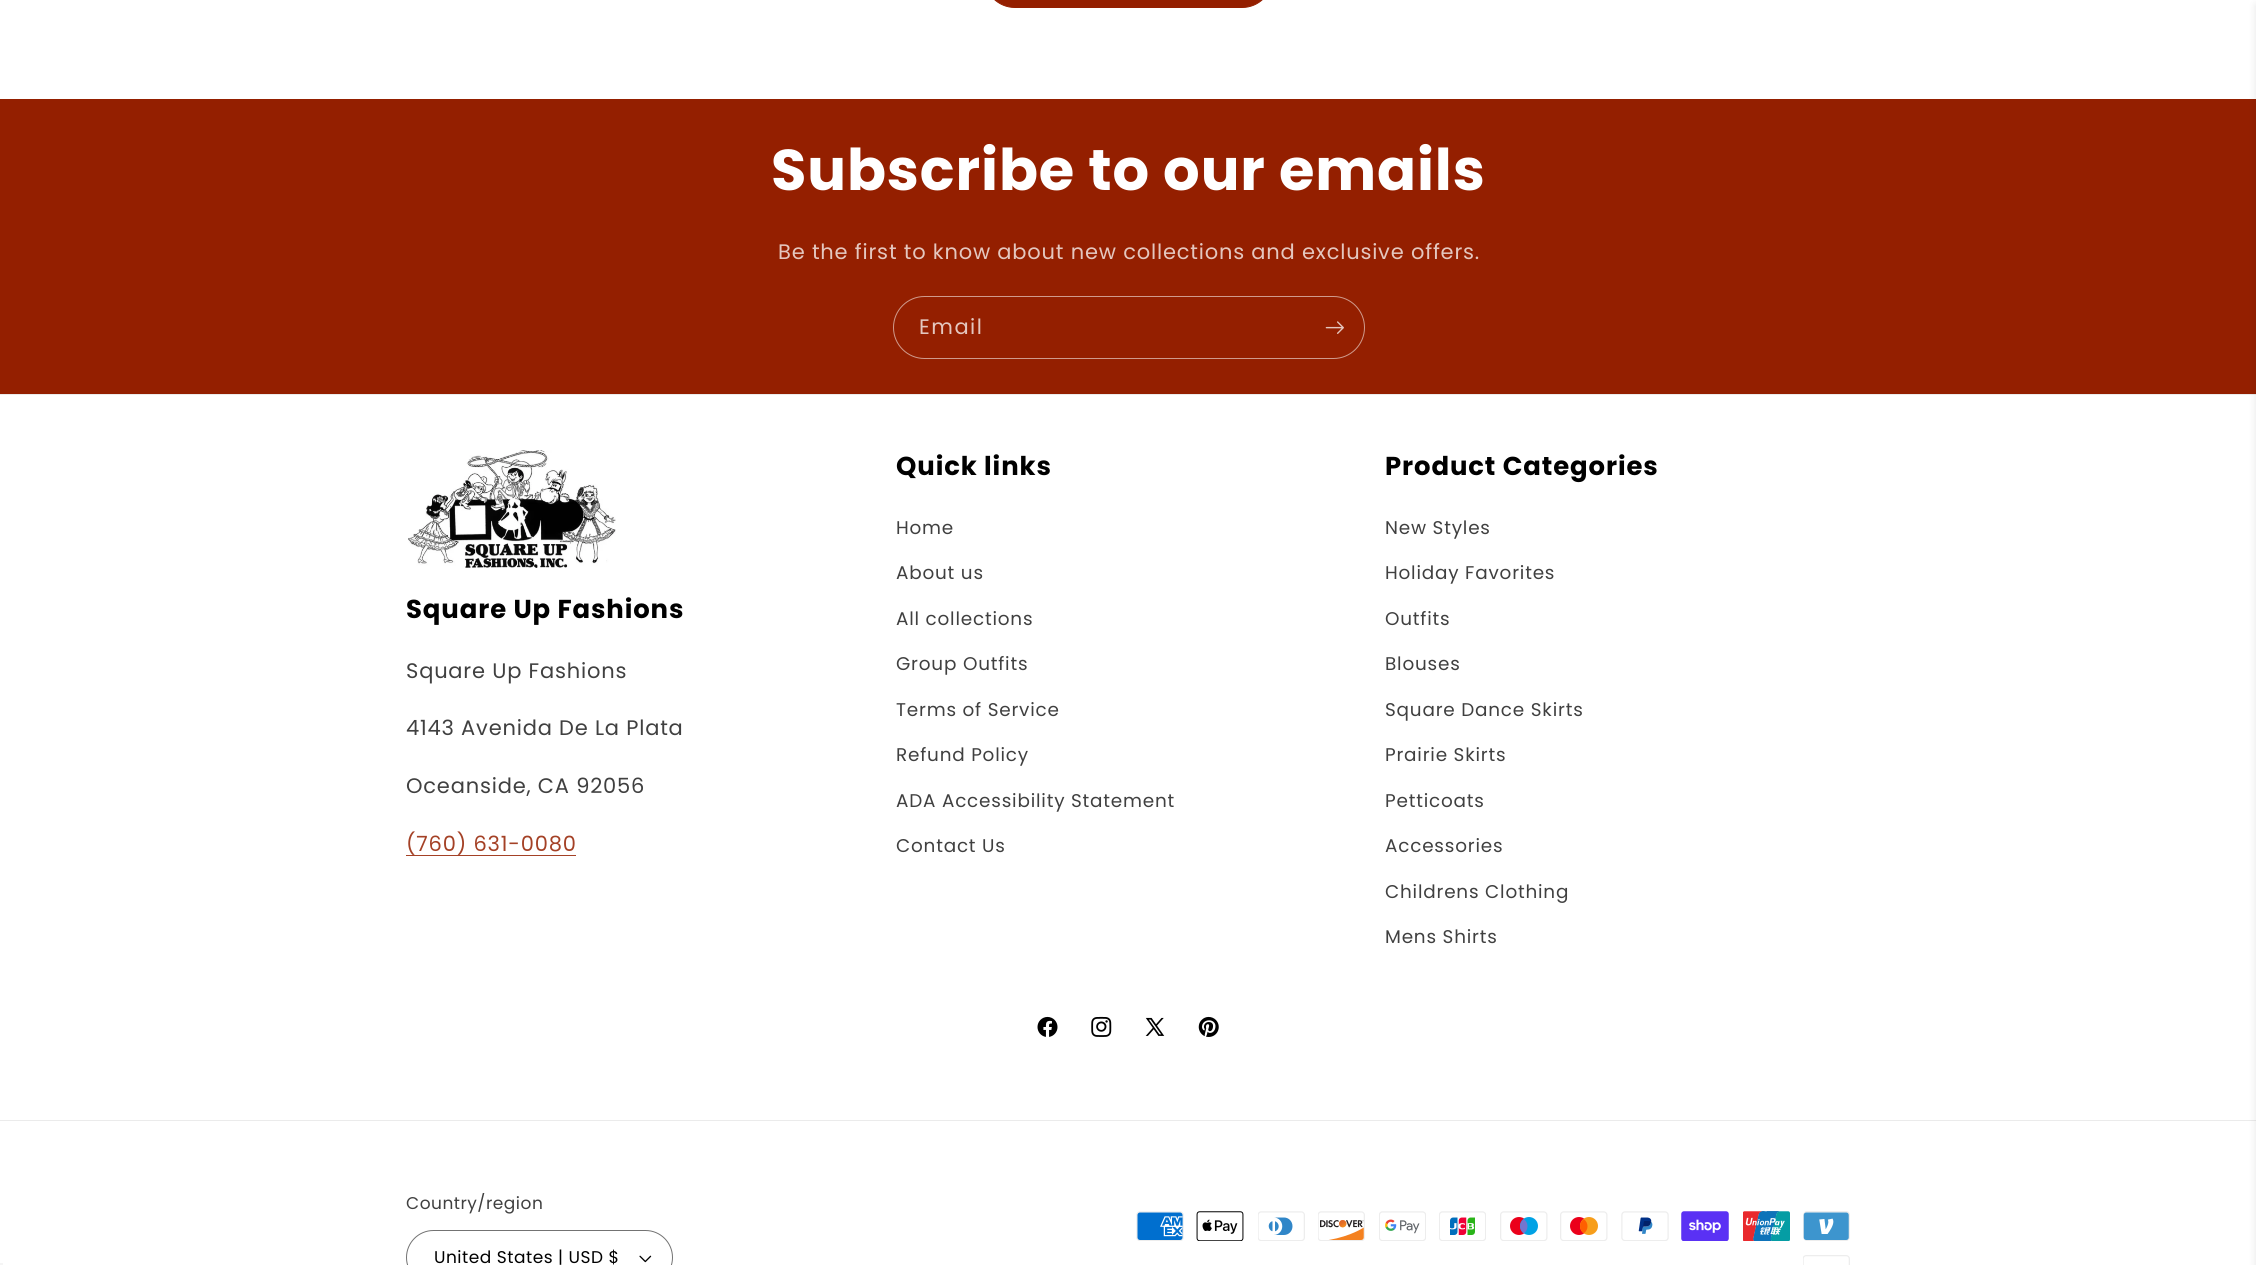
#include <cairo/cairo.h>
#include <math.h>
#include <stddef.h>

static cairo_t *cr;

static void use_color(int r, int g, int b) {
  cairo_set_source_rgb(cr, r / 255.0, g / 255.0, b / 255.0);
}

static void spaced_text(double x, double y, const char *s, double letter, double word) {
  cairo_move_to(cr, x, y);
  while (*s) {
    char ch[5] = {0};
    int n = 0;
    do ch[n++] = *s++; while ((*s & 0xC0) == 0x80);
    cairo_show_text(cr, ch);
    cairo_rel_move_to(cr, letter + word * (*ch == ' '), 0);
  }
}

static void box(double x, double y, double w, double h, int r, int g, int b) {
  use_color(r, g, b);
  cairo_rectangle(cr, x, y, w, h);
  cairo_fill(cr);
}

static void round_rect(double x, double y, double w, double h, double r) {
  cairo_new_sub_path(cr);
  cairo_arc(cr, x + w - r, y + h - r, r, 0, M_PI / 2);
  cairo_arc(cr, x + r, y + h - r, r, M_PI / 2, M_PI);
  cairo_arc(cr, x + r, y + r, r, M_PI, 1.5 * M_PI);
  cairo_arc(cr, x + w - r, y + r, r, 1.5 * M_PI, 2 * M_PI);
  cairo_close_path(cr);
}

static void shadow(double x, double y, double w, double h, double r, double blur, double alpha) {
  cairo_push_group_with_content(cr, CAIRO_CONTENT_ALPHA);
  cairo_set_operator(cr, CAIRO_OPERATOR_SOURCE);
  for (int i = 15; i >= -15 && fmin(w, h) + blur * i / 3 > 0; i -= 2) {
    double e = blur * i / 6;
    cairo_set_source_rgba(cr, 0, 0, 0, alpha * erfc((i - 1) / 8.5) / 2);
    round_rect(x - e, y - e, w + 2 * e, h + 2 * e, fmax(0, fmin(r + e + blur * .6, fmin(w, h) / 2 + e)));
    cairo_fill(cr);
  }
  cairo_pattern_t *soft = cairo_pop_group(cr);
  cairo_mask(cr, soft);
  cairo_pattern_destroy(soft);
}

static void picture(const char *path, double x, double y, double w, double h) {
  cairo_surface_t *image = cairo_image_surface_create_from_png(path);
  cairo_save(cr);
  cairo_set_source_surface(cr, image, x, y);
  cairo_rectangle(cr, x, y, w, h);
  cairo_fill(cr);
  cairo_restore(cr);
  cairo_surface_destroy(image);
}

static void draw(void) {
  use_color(255, 255, 255);
  cairo_paint(cr);
  use_color(148, 31, 0);
  round_rect(984.5, -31.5, 288, 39, 30.5);
  cairo_fill_preserve(cr);
  cairo_set_line_width(cr, 1);
  cairo_stroke(cr);
  box(0, 99, 2256, 295, 148, 31, 0);
  round_rect(893.5, 296.5, 471, 62, 31);
  use_color(207, 154, 140);
  cairo_stroke(cr);
  picture("img_01.png", 1325, 321, 19, 13);
  box(0, 394, 2256, 1, 235, 235, 235);
  box(0, 1120, 2256, 1, 235, 235, 235);
  use_color(0, 0, 0);
  shadow(2256, 5, 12, 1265, 0, 4, 0.1);
  box(0, 1263, 3, 2, 245, 245, 245);
  picture("img_02.png", 408, 450, 208, 118);
  box(406, 855, 170, 1, 164, 65, 38);
  picture("img_03.png", 1037, 1016, 21, 21);
  picture("img_04.png", 1091, 1016, 21, 21);
  picture("img_05.png", 1145, 1017, 20, 19);
  picture("img_06.png", 1198, 1016, 21, 21);
  picture("img_07.png", 639, 1255, 13, 8);
  round_rect(406.5, 1230.5, 266, 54, 27);
  use_color(115, 115, 115);
  cairo_stroke(cr);
  picture("img_08.png", 1136, 1211, 48, 30);
  picture("img_09.png", 1196, 1211, 48, 30);
  picture("img_10.png", 1258, 1211, 47, 30);
  picture("img_11.png", 1318, 1211, 47, 30);
  picture("img_12.png", 1379, 1211, 47, 30);
  picture("img_13.png", 1439, 1211, 47, 30);
  picture("img_14.png", 1500, 1211, 48, 30);
  picture("img_15.png", 1560, 1211, 48, 30);
  picture("img_16.png", 1621, 1211, 48, 30);
  picture("img_17.png", 1681, 1211, 48, 30);
  picture("img_18.png", 1743, 1211, 47, 30);
  picture("img_19.png", 1803, 1211, 47, 30);
  picture("img_20.png", 1803, 1255, 47, 10);
  cairo_select_font_face(cr, "Poppins", CAIRO_FONT_SLANT_NORMAL, CAIRO_FONT_WEIGHT_BOLD);
  cairo_set_font_size(cr, 57.5);
  use_color(255, 255, 255);
  spaced_text(771, 190, "Subscribe to our emails", 0.9, 0);
  cairo_select_font_face(cr, "Poppins", CAIRO_FONT_SLANT_NORMAL, CAIRO_FONT_WEIGHT_NORMAL);
  cairo_set_font_size(cr, 21);
  use_color(228, 199, 191);
  spaced_text(778, 259, "Be the first to know about new collections and exclusive offers.", 0.8, 0);
  spaced_text(919, 334, "Email", 1.5, 0);
  cairo_select_font_face(cr, "Poppins", CAIRO_FONT_SLANT_NORMAL, CAIRO_FONT_WEIGHT_BOLD);
  cairo_set_font_size(cr, 25.9);
  use_color(0, 0, 0);
  spaced_text(406, 618, "Square Up Fashions", 0.9, 0);
  cairo_select_font_face(cr, "Poppins", CAIRO_FONT_SLANT_NORMAL, CAIRO_FONT_WEIGHT_NORMAL);
  cairo_set_font_size(cr, 21);
  use_color(64, 64, 64);
  spaced_text(406, 678, "Square Up Fashions", 0.8, 0);
  spaced_text(406, 735, "4143 Avenida De La Plata", 0.8, 0);
  spaced_text(406, 793, "Oceanside, CA 92056", 0.8, 0);
  use_color(164, 65, 38);
  spaced_text(406, 851, "(760) 631-0080", 0.8, 0);
  cairo_select_font_face(cr, "Poppins", CAIRO_FONT_SLANT_NORMAL, CAIRO_FONT_WEIGHT_BOLD);
  cairo_set_font_size(cr, 25.9);
  use_color(0, 0, 0);
  spaced_text(896, 475, "Quick links", 0.9, 0);
  cairo_select_font_face(cr, "Poppins", CAIRO_FONT_SLANT_NORMAL, CAIRO_FONT_WEIGHT_NORMAL);
  cairo_set_font_size(cr, 18.4);
  use_color(64, 64, 64);
  spaced_text(896, 534, "Home", 0.8, 0);
  spaced_text(896, 579, "About us", 0.8, 0);
  spaced_text(896, 625, "All collections", 0.8, 0);
  spaced_text(896, 670, "Group Outfits", 0.8, 0);
  spaced_text(896, 716, "Terms of Service", 0.8, 0);
  spaced_text(896, 761, "Refund Policy", 0.8, 0);
  spaced_text(896, 807, "ADA Accessibility Statement", 0.8, 0);
  spaced_text(896, 852, "Contact Us", 0.8, 0);
  cairo_select_font_face(cr, "Poppins", CAIRO_FONT_SLANT_NORMAL, CAIRO_FONT_WEIGHT_BOLD);
  cairo_set_font_size(cr, 25.9);
  use_color(0, 0, 0);
  spaced_text(1385, 475, "Product Categories", 0.9, 0);
  cairo_select_font_face(cr, "Poppins", CAIRO_FONT_SLANT_NORMAL, CAIRO_FONT_WEIGHT_NORMAL);
  cairo_set_font_size(cr, 18.4);
  use_color(64, 64, 64);
  spaced_text(1385, 534, "New Styles", 0.8, 0);
  spaced_text(1385, 579, "Holiday Favorites", 0.8, 0);
  spaced_text(1385, 625, "Outfits", 0.8, 0);
  spaced_text(1385, 670, "Blouses", 0.8, 0);
  spaced_text(1385, 716, "Square Dance Skirts", 0.8, 0);
  spaced_text(1385, 761, "Prairie Skirts", 0.8, 0);
  spaced_text(1385, 807, "Petticoats", 0.8, 0);
  spaced_text(1385, 852, "Accessories", 0.8, 0);
  spaced_text(1385, 898, "Childrens Clothing", 0.8, 0);
  spaced_text(1385, 943, "Mens Shirts", 0.8, 0);
  cairo_set_font_size(cr, 17);
  spaced_text(406, 1209, "Country/region", 0.5, 0);
  use_color(0, 0, 0);
  spaced_text(434, 1263, "United States | USD $", 0.5, 0);
}

int main(void) {
  cairo_surface_t *surface = cairo_image_surface_create(CAIRO_FORMAT_RGB24, 2256, 1265);
  cr = cairo_create(surface);
  cairo_font_options_t *options = cairo_font_options_create();
  cairo_font_options_set_hint_metrics(options, CAIRO_HINT_METRICS_OFF);
  cairo_font_options_set_hint_style(options, CAIRO_HINT_STYLE_NONE);
  cairo_set_font_options(cr, options);
  cairo_set_miter_limit(cr, 4);
  draw();
  cairo_surface_write_to_png(surface, "out.png");
  cairo_font_options_destroy(options);
  cairo_destroy(cr);
  cairo_surface_destroy(surface);
  return 0;
}
